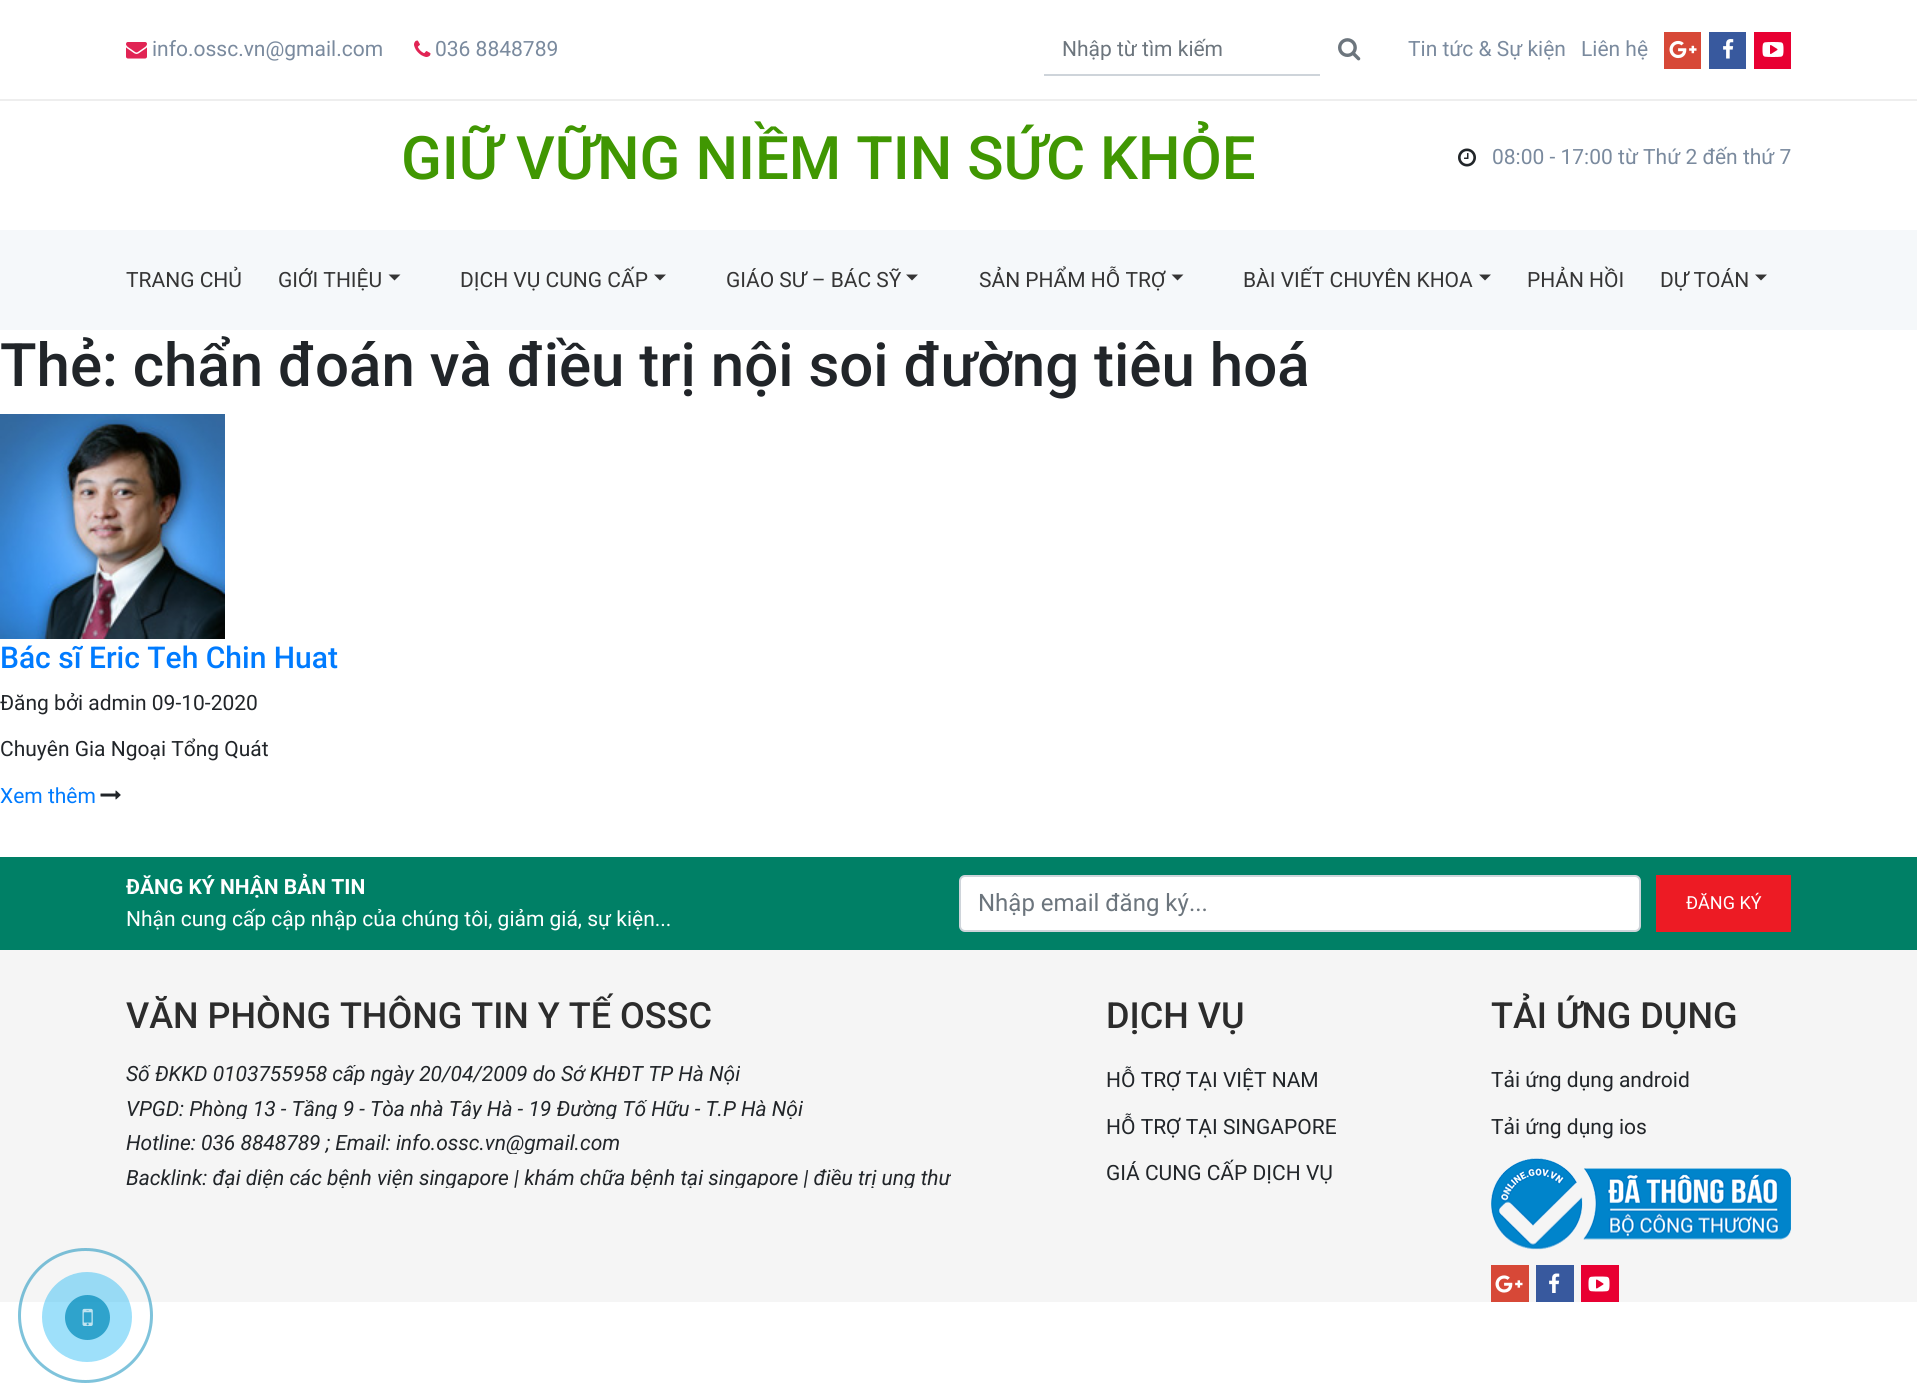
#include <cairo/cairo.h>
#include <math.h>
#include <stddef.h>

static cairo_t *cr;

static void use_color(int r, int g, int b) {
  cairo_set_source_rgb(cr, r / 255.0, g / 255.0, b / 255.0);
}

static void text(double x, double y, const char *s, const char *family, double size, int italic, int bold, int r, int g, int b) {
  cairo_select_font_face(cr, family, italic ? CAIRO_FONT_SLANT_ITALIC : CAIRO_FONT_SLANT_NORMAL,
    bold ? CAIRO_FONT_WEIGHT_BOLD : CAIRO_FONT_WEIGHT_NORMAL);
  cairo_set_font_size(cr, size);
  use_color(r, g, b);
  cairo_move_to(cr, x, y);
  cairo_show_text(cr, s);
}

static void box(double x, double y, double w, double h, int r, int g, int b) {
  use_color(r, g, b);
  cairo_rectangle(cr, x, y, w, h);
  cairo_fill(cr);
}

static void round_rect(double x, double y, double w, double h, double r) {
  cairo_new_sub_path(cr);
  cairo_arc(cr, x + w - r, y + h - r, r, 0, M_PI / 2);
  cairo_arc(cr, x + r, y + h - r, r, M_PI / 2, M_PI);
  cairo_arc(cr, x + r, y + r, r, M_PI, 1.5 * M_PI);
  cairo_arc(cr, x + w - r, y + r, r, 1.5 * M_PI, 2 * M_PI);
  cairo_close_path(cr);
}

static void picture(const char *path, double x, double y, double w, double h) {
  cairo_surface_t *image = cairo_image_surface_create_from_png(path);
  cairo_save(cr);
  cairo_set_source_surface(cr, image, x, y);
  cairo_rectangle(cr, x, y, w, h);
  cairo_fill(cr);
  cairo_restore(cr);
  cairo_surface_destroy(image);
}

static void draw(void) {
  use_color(255, 255, 255);
  cairo_paint(cr);
  box(0, 99, 1917, 2, 238, 238, 238);
  picture("img_01.png", 126, 42, 21, 17);
  picture("img_02.png", 414, 40, 17, 17);
  box(1044, 74, 276, 2, 206, 212, 218);
  picture("img_03.png", 1338, 38, 23, 23);
  box(1664, 32, 37, 37, 215, 72, 55);
  picture("img_04.png", 1669, 40, 28, 19);
  box(1709, 32, 37, 37, 56, 89, 158);
  picture("img_05.png", 1723, 39, 11, 20);
  box(1754, 32, 37, 37, 232, 0, 50);
  picture("img_06.png", 1762, 42, 22, 15);
  picture("img_07.png", 1458, 148, 18, 19);
  box(0, 230, 1917, 100, 245, 248, 250);
  use_color(53, 53, 53);
  cairo_new_path(cr);
  cairo_move_to(cr, 388.5, 274.5);
  cairo_line_to(cr, 400.5, 274.5);
  cairo_line_to(cr, 394.5, 280.5);
  cairo_close_path(cr);
  cairo_fill(cr);
  cairo_new_path(cr);
  cairo_move_to(cr, 654, 274.5);
  cairo_line_to(cr, 666, 274.5);
  cairo_line_to(cr, 660, 280.5);
  cairo_close_path(cr);
  cairo_fill(cr);
  cairo_new_path(cr);
  cairo_move_to(cr, 906, 274.5);
  cairo_line_to(cr, 918, 274.5);
  cairo_line_to(cr, 912, 280.5);
  cairo_close_path(cr);
  cairo_fill(cr);
  cairo_new_path(cr);
  cairo_move_to(cr, 1171.5, 274.5);
  cairo_line_to(cr, 1183.5, 274.5);
  cairo_line_to(cr, 1177.5, 280.5);
  cairo_close_path(cr);
  cairo_fill(cr);
  cairo_new_path(cr);
  cairo_move_to(cr, 1479, 274.5);
  cairo_line_to(cr, 1491, 274.5);
  cairo_line_to(cr, 1485, 280.5);
  cairo_close_path(cr);
  cairo_fill(cr);
  cairo_new_path(cr);
  cairo_move_to(cr, 1755, 274.5);
  cairo_line_to(cr, 1767, 274.5);
  cairo_line_to(cr, 1761, 280.5);
  cairo_close_path(cr);
  cairo_fill(cr);
  picture("img_08.png", 0, 414, 225, 225);
  picture("img_09.png", 100, 790, 21, 10);
  box(0, 857, 1917, 93, 0, 128, 102);
  use_color(255, 255, 255);
  round_rect(960, 876, 680, 55, 5);
  cairo_fill_preserve(cr);
  use_color(206, 212, 218);
  cairo_stroke(cr);
  box(1656, 875, 135, 57, 237, 27, 36);
  box(0, 950, 1917, 352, 245, 245, 245);
  picture("img_10.png", 1491, 1158, 300, 92);
  box(1491, 1265, 38, 37, 215, 72, 55);
  picture("img_11.png", 1495, 1275, 28, 18);
  box(1536, 1265, 38, 37, 56, 89, 158);
  picture("img_12.png", 1549, 1273, 11, 20);
  box(1581, 1265, 38, 37, 232, 0, 50);
  picture("img_13.png", 1588, 1276, 22, 16);
  cairo_arc(cr, 85.5, 1315.5, 66, 0, 2 * M_PI);
  cairo_set_source_rgba(cr, 0, 0.537, 0.725, 0.5);
  cairo_set_line_width(cr, 3);
  cairo_stroke(cr);
  cairo_set_source_rgba(cr, 0, 0.686, 0.949, 0.38);
  cairo_arc(cr, 87, 1317, 45, 0, 2 * M_PI);
  cairo_fill(cr);
  cairo_set_source_rgba(cr, 0, 0.537, 0.725, 0.7);
  cairo_arc(cr, 87.5, 1317.5, 22.5, 0, 2 * M_PI);
  cairo_fill(cr);
  picture("img_14.png", 82, 1308, 11, 18);
  text(152, 56, "info.ossc.vn@gmail.com", "Roboto", 21, 0, 0, 122, 138, 158);
  text(435, 56, "036 8848789", "Roboto", 21, 0, 0, 122, 138, 158);
  cairo_save(cr);
  cairo_rectangle(cr, 1062, 36, 240, 24);
  cairo_clip(cr);
  text(1062, 56, "Nhập từ tìm kiếm", "Roboto", 21, 0, 0, 108, 117, 125);
  cairo_restore(cr);
  text(1408, 56, "Tin tức & Sự kiện", "Roboto", 21, 0, 0, 122, 138, 158);
  text(1581, 56, "Liên hệ", "Roboto", 21, 0, 0, 122, 138, 158);
  text(401, 179, "GIỮ VỮNG NIỀM TIN SỨC KHỎE", "Roboto Medium", 60, 0, 0, 64, 151, 2);
  text(1492, 164, "08:00 - 17:00 từ Thứ 2 đến thứ 7", "Roboto", 21, 0, 0, 122, 138, 158);
  text(126, 287, "TRANG CHỦ", "Roboto", 21, 0, 0, 53, 53, 53);
  text(278, 287, "GIỚI THIỆU", "Roboto", 21, 0, 0, 53, 53, 53);
  text(460, 287, "DỊCH VỤ CUNG CẤP", "Roboto", 21, 0, 0, 53, 53, 53);
  text(726, 287, "GIÁO SƯ – BÁC SỸ", "Roboto", 21, 0, 0, 53, 53, 53);
  text(979, 287, "SẢN PHẨM HỖ TRỢ", "Roboto", 21, 0, 0, 53, 53, 53);
  text(1243, 287, "BÀI VIẾT CHUYÊN KHOA", "Roboto", 21, 0, 0, 53, 53, 53);
  text(1527, 287, "PHẢN HỒI", "Roboto", 21, 0, 0, 53, 53, 53);
  text(1660, 287, "DỰ TOÁN", "Roboto", 21, 0, 0, 53, 53, 53);
  text(0, 386, "Thẻ: chẩn đoán và điều trị nội soi đường tiêu hoá", "Roboto Medium", 60, 0, 0, 33, 37, 41);
  text(0, 668, "Bác sĩ Eric Teh Chin Huat", "Roboto Medium", 30, 0, 0, 0, 123, 255);
  text(0, 710, "Đăng bởi admin 09-10-2020", "Roboto", 21, 0, 0, 33, 37, 41);
  text(0, 756, "Chuyên Gia Ngoại Tổng Quát", "Roboto", 21, 0, 0, 33, 37, 41);
  text(0, 803, "Xem thêm", "Roboto", 21, 0, 0, 0, 123, 255);
  text(126, 894, "ĐĂNG KÝ NHẬN BẢN TIN", "Roboto", 21, 0, 1, 255, 255, 255);
  text(126, 926, "Nhận cung cấp cập nhập của chúng tôi, giảm giá, sự kiện...", "Roboto", 21, 0, 0, 255, 255, 255);
  text(978, 911, "Nhập email đăng ký...", "Roboto", 24, 0, 0, 108, 117, 125);
  text(1686, 909, "ĐĂNG KÝ", "Roboto", 18, 0, 0, 255, 255, 255);
  text(126, 1028, "VĂN PHÒNG THÔNG TIN Y TẾ OSSC", "Roboto Medium", 36, 0, 0, 44, 44, 44);
  cairo_save(cr);
  cairo_rectangle(cr, 126, 1065, 825, 20);
  cairo_clip(cr);
  text(126, 1081, "Số ĐKKD 0103755958 cấp ngày 20/04/2009 do Sở KHĐT TP Hà Nội", "Roboto", 21, 1, 0, 33, 37, 41);
  cairo_restore(cr);
  cairo_save(cr);
  cairo_rectangle(cr, 126, 1100, 825, 19);
  cairo_clip(cr);
  text(126, 1116, "VPGD: Phòng 13 - Tầng 9 - Tòa nhà Tây Hà - 19 Đường Tố Hữu - T.P Hà Nội", "Roboto", 21, 1, 0, 33, 37, 41);
  cairo_restore(cr);
  text(126, 1150, "Hotline: 036 8848789 ; Email: info.ossc.vn", "Roboto", 21, 1, 0, 33, 37, 41);
  cairo_save(cr);
  cairo_rectangle(cr, 126, 1134, 825, 20);
  cairo_clip(cr);
  text(506, 1150, "@gmail.com", "Roboto", 21, 1, 0, 33, 37, 41);
  cairo_restore(cr);
  cairo_save(cr);
  cairo_rectangle(cr, 126, 1169, 825, 19);
  cairo_clip(cr);
  text(126, 1185, "Backlink: đại diện các bệnh viện singapore | khám chữa bệnh tại singapore | điều trị ung thư", "Roboto", 21, 1, 0, 33, 37, 41);
  cairo_restore(cr);
  text(1106, 1028, "DỊCH VỤ", "Roboto Medium", 36, 0, 0, 44, 44, 44);
  text(1106, 1087, "HỖ TRỢ TẠI VIỆT NAM", "Roboto", 21, 0, 0, 33, 37, 41);
  text(1106, 1134, "HỖ TRỢ TẠI SINGAPORE", "Roboto", 21, 0, 0, 33, 37, 41);
  text(1106, 1180, "GIÁ CUNG CẤP DỊCH VỤ", "Roboto", 21, 0, 0, 33, 37, 41);
  text(1491, 1028, "TẢI ỨNG DỤNG", "Roboto Medium", 36, 0, 0, 44, 44, 44);
  text(1491, 1087, "Tải ứng dụng android", "Roboto", 21, 0, 0, 33, 37, 41);
  text(1491, 1134, "Tải ứng dụng ios", "Roboto", 21, 0, 0, 33, 37, 41);
}

int main(void) {
  cairo_surface_t *surface = cairo_image_surface_create(CAIRO_FORMAT_RGB24, 1917, 1395);
  cr = cairo_create(surface);
  cairo_font_options_t *options = cairo_font_options_create();
  cairo_font_options_set_hint_metrics(options, CAIRO_HINT_METRICS_OFF);
  cairo_font_options_set_hint_style(options, CAIRO_HINT_STYLE_NONE);
  cairo_set_font_options(cr, options);
  cairo_set_miter_limit(cr, 4);
  draw();
  cairo_surface_write_to_png(surface, "out.png");
  cairo_font_options_destroy(options);
  cairo_destroy(cr);
  cairo_surface_destroy(surface);
  return 0;
}
